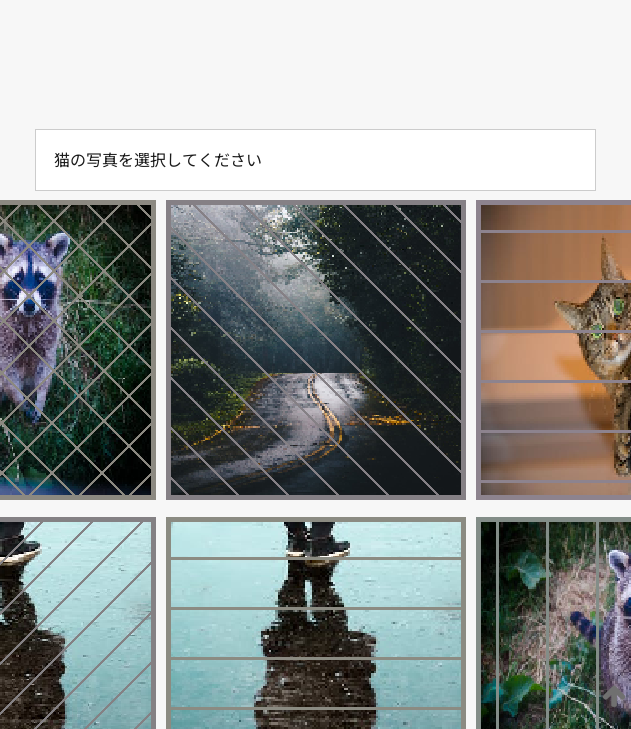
#include <cairo/cairo.h>
#include <math.h>
#include <stddef.h>

static cairo_t *cr;

static void use_color(int r, int g, int b) {
  cairo_set_source_rgb(cr, r / 255.0, g / 255.0, b / 255.0);
}

static void text(double x, double y, const char *s, const char *family, double size, int italic, int bold, int r, int g, int b) {
  cairo_select_font_face(cr, family, italic ? CAIRO_FONT_SLANT_ITALIC : CAIRO_FONT_SLANT_NORMAL,
    bold ? CAIRO_FONT_WEIGHT_BOLD : CAIRO_FONT_WEIGHT_NORMAL);
  cairo_set_font_size(cr, size);
  use_color(r, g, b);
  cairo_move_to(cr, x, y);
  cairo_show_text(cr, s);
}

static void picture(const char *path, double x, double y, double w, double h) {
  cairo_surface_t *image = cairo_image_surface_create_from_png(path);
  cairo_save(cr);
  cairo_set_source_surface(cr, image, x, y);
  cairo_rectangle(cr, x, y, w, h);
  cairo_fill(cr);
  cairo_restore(cr);
  cairo_surface_destroy(image);
}

static void draw(void) {
  use_color(247, 247, 247);
  cairo_paint(cr);
  use_color(255, 255, 255);
  cairo_rectangle(cr, 35.5, 129.5, 560, 61);
  cairo_fill_preserve(cr);
  use_color(204, 204, 204);
  cairo_set_line_width(cr, 1);
  cairo_stroke(cr);
  picture("img_01.png", 0, 200, 156, 300);
  picture("img_02.png", 166, 200, 300, 300);
  picture("img_03.png", 476, 200, 155, 300);
  picture("img_04.png", 0, 517, 156, 212);
  picture("img_05.png", 166, 517, 300, 212);
  picture("img_06.png", 476, 517, 155, 212);
  picture("img_07.png", 602, 685, 24, 22);
  text(54, 166, "猫の写真を選択してください", "Noto Sans SC Thin", 16, 0, 0, 26, 26, 26);
}

int main(void) {
  cairo_surface_t *surface = cairo_image_surface_create(CAIRO_FORMAT_RGB24, 631, 729);
  cr = cairo_create(surface);
  cairo_font_options_t *options = cairo_font_options_create();
  cairo_font_options_set_hint_metrics(options, CAIRO_HINT_METRICS_OFF);
  cairo_font_options_set_hint_style(options, CAIRO_HINT_STYLE_NONE);
  cairo_set_font_options(cr, options);
  cairo_set_miter_limit(cr, 4);
  draw();
  cairo_surface_write_to_png(surface, "out.png");
  cairo_font_options_destroy(options);
  cairo_destroy(cr);
  cairo_surface_destroy(surface);
  return 0;
}
